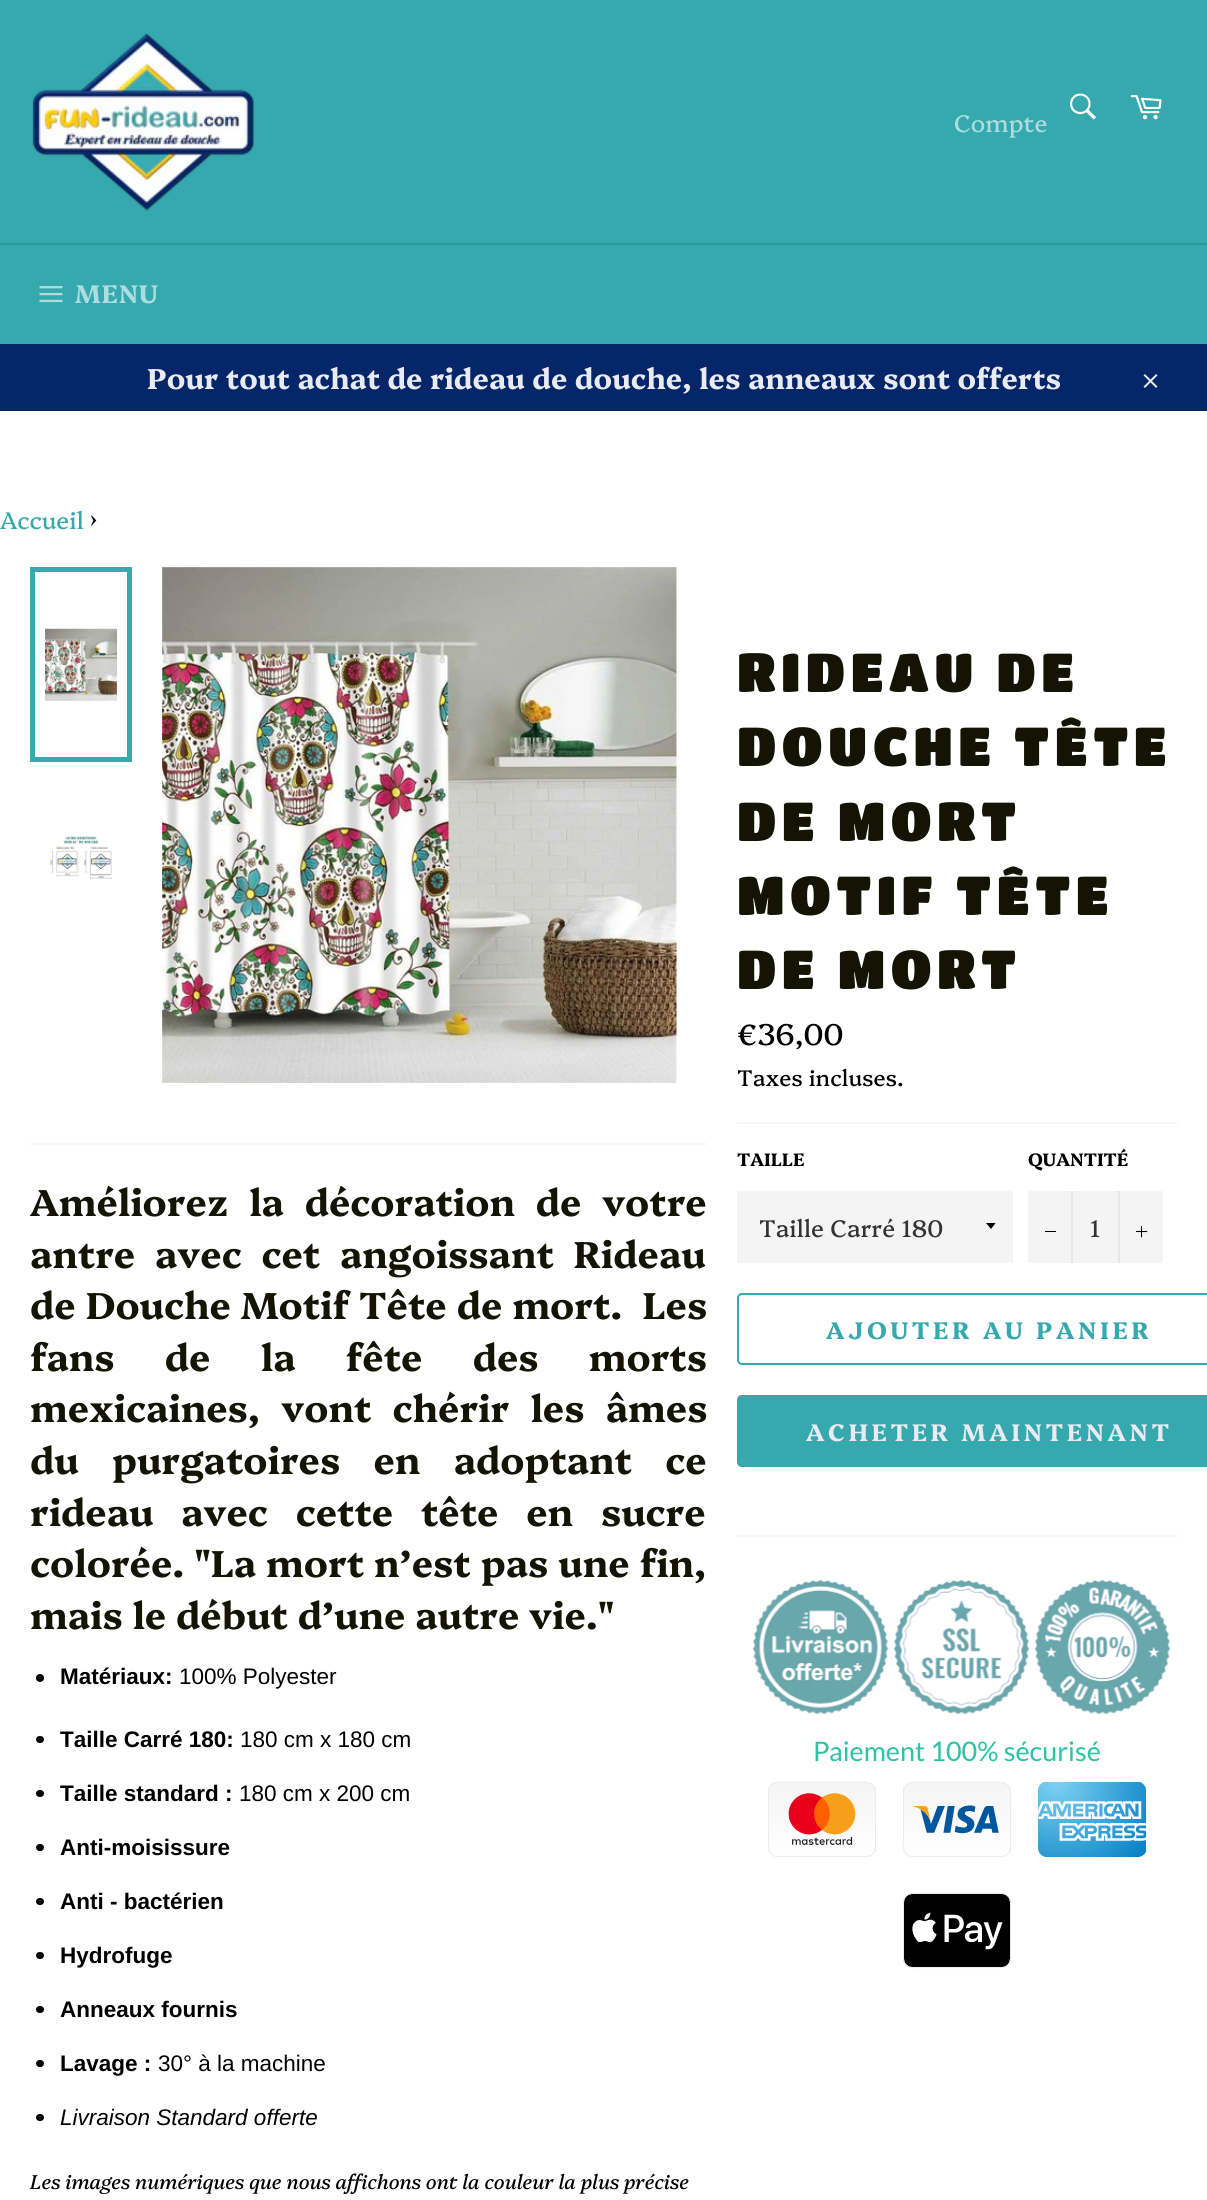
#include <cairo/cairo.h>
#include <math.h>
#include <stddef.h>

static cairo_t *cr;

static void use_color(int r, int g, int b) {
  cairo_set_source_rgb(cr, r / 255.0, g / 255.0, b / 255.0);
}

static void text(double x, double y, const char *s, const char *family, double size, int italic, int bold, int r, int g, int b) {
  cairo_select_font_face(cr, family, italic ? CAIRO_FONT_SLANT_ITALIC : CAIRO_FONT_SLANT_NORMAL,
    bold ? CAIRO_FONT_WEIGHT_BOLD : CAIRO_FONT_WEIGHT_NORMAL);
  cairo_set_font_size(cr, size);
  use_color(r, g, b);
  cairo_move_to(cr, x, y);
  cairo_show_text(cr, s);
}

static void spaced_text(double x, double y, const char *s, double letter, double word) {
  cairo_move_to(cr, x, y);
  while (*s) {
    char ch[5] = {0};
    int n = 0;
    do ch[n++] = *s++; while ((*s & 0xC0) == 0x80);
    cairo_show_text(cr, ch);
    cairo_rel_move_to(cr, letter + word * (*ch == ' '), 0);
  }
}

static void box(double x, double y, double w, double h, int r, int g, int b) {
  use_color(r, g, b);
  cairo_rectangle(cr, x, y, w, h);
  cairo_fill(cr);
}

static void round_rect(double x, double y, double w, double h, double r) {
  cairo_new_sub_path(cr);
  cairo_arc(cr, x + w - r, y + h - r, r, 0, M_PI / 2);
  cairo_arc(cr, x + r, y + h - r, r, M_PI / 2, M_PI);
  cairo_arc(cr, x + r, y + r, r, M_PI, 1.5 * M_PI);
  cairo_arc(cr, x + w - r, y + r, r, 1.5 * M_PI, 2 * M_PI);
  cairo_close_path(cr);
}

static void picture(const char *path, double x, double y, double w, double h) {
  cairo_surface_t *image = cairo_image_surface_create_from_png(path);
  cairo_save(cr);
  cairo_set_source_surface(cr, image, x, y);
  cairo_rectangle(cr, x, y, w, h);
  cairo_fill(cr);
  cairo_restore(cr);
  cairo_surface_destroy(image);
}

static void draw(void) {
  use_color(53, 169, 174);
  cairo_paint(cr);
  picture("img_01.png", 32, 33, 222, 178);
  picture("img_02.png", 1069, 93, 27, 27);
  picture("img_03.png", 1130, 95, 32, 25);
  box(0, 243, 1207, 2, 47, 150, 154);
  picture("img_04.png", 39, 286, 24, 17);
  box(0, 344, 1207, 67, 5, 38, 105);
  picture("img_05.png", 1143, 374, 15, 14);
  box(0, 411, 1207, 1789, 255, 255, 255);
  box(737, 1122, 441, 2, 247, 247, 247);
  box(737, 1191, 276, 72, 244, 244, 244);
  cairo_save(cr);
  cairo_rectangle(cr, 986, 1223, 12, 7);
  cairo_clip(cr);
  use_color(0, 0, 0);
  cairo_new_path(cr);
  cairo_move_to(cr, 985.5, 1222.5);
  cairo_line_to(cr, 991, 1229);
  cairo_line_to(cr, 996, 1222.5);
  cairo_close_path(cr);
  cairo_fill(cr);
  cairo_restore(cr);
  box(1028, 1191, 135, 72, 244, 244, 244);
  box(1071, 1191, 2, 72, 231, 231, 231);
  box(1045, 1231, 11, 1, 0, 0, 0);
  box(1118, 1191, 2, 72, 231, 231, 231);
  picture("img_06.png", 1136, 1226, 12, 12);
  round_rect(738, 1294, 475, 70, 4);
  use_color(53, 169, 174);
  cairo_stroke(cr);
  cairo_new_path(cr);
  cairo_move_to(cr, 742, 1395);
  cairo_line_to(cr, 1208, 1395);
  cairo_line_to(cr, 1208, 1467);
  cairo_line_to(cr, 742, 1467);
  cairo_curve_to(cr, 739, 1467, 737, 1465, 737, 1462);
  cairo_line_to(cr, 737, 1400);
  cairo_curve_to(cr, 737, 1397, 739, 1395, 742, 1395);
  cairo_close_path(cr);
  cairo_fill(cr);
  box(737, 1535, 441, 2, 247, 247, 247);
  picture("img_07.png", 752, 1579, 419, 136);
  picture("img_08.png", 768, 1741, 378, 228);
  picture("img_09.png", 45, 628, 72, 73);
  cairo_rectangle(cr, 32.5, 569.5, 97, 190);
  use_color(53, 169, 174);
  cairo_set_line_width(cr, 5);
  cairo_stroke(cr);
  picture("img_10.png", 50, 836, 62, 44);
  picture("img_11.png", 162, 567, 515, 516);
  box(30, 1143, 677, 2, 247, 247, 247);
  use_color(0, 0, 0);
  cairo_arc(cr, 40, 1678, 4, 0, 2 * M_PI);
  cairo_fill(cr);
  round_rect(36, 1736, 8, 7, 3.5);
  cairo_fill(cr);
  round_rect(36, 1790, 8, 7, 3.5);
  cairo_fill(cr);
  round_rect(36, 1844, 8, 7, 3.5);
  cairo_fill(cr);
  round_rect(36, 1898, 8, 7, 3.5);
  cairo_fill(cr);
  round_rect(36, 1952, 8, 7, 3.5);
  cairo_fill(cr);
  round_rect(36, 2006, 8, 7, 3.5);
  cairo_fill(cr);
  round_rect(36, 2060, 8, 7, 3.5);
  cairo_fill(cr);
  round_rect(36, 2114, 8, 7, 3.5);
  cairo_fill(cr);
  text(954, 132, "Compte", "Platypi", 24, 0, 0, 174, 221, 223);
  cairo_select_font_face(cr, "Platypi", CAIRO_FONT_SLANT_NORMAL, CAIRO_FONT_WEIGHT_BOLD);
  cairo_set_font_size(cr, 25.5);
  spaced_text(75, 303, "MENU", 1, 0);
  text(147, 389, "Pour tout achat de rideau de douche, les anneaux sont offerts", "Platypi", 28.8, 0, 1, 233, 235, 242);
  text(0, 529, "Accueil", "Platypi", 24, 0, 0, 53, 169, 174);
  text(90, 529, "›", "Platypi", 24, 0, 0, 0, 0, 0);
  cairo_select_font_face(cr, "Titan One", CAIRO_FONT_SLANT_NORMAL, CAIRO_FONT_WEIGHT_NORMAL);
  cairo_set_font_size(cr, 54);
  use_color(19, 20, 3);
  spaced_text(737, 692, "RIDEAU DE", 5.4, 0);
  spaced_text(737, 766, "DOUCHE TÊTE", 5.4, 0);
  spaced_text(737, 841, "DE MORT", 5.4, 0);
  spaced_text(737, 915, "MOTIF TÊTE", 5.4, 0);
  spaced_text(737, 989, "DE MORT", 5.4, 0);
  text(737, 1045, "€36,00", "Platypi", 30, 0, 0, 0, 0, 0);
  text(737, 1086, "Taxes incluses.", "Platypi", 22.5, 0, 0, 0, 0, 0);
  text(737, 1166, "TAILLE", "Platypi", 18, 0, 1, 0, 0, 0);
  text(759, 1237, "Taille Carré 180", "Platypi", 24, 0, 0, 51, 51, 51);
  text(1028, 1166, "QUANTITÉ", "Platypi", 18, 0, 1, 0, 0, 0);
  text(1090, 1237, "1", "Platypi", 24, 0, 0, 51, 51, 51);
  cairo_select_font_face(cr, "Platypi", CAIRO_FONT_SLANT_NORMAL, CAIRO_FONT_WEIGHT_BOLD);
  use_color(53, 169, 174);
  spaced_text(826, 1339, "AJOUTER AU PANIER", 3.6, 0);
  use_color(233, 235, 242);
  spaced_text(806, 1441, "ACHETER MAINTENANT", 3.6, 0);
  cairo_set_font_size(cr, 37.5);
  use_color(19, 20, 3);
  spaced_text(30, 1216, "Améliorez la décoration de votre", 0, 11);
  spaced_text(30, 1268, "antre avec cet angoissant Rideau", 0, 10);
  spaced_text(30, 1319, "de Douche Motif Tête de mort.  Les", 0, 0.25);
  spaced_text(30, 1371, "fans de la fête des morts", 0, 40.5);
  spaced_text(30, 1422, "mexicaines, vont chérir les âmes", 0, 11.5);
  spaced_text(30, 1474, "du purgatoires en adoptant ce", 0, 23.5);
  spaced_text(30, 1526, "rideau avec cette tête en sucre", 0, 18);
  spaced_text(30, 1577, "colorée. \"La mort n’est pas une fin,", 0, 0.25);
  text(30, 1629, "mais le début d’une autre vie.\"", "Platypi", 37.5, 0, 1, 19, 20, 3);
  text(60, 1684, "Matériaux:", "Liberation Sans", 22.5, 0, 1, 0, 0, 0);
  text(179, 1684, "100% Polyester", "Liberation Sans", 22.5, 0, 0, 0, 0, 0);
  text(60, 1747, "Taille Carré 180:", "Liberation Sans", 22.5, 0, 1, 0, 0, 0);
  text(240, 1747, "180 cm x 180 cm", "Liberation Sans", 22.5, 0, 0, 0, 0, 0);
  text(60, 1801, "Taille standard :", "Liberation Sans", 22.5, 0, 1, 0, 0, 0);
  text(239, 1801, "180 cm x 200 cm", "Liberation Sans", 22.5, 0, 0, 0, 0, 0);
  text(60, 1855, "Anti-moisissure", "Liberation Sans", 22.5, 0, 1, 0, 0, 0);
  text(60, 1909, "Anti - bactérien", "Liberation Sans", 22.5, 0, 1, 0, 0, 0);
  text(60, 1963, "Hydrofuge", "Liberation Sans", 22.5, 0, 1, 0, 0, 0);
  text(60, 2017, "Anneaux fournis", "Liberation Sans", 22.5, 0, 1, 0, 0, 0);
  text(60, 2071, "Lavage :", "Liberation Sans", 22.5, 0, 1, 0, 0, 0);
  text(158, 2071, "30° à la machine", "Liberation Sans", 22.5, 0, 0, 0, 0, 0);
  text(60, 2125, "Livraison Standard offerte", "Liberation Sans", 22.5, 1, 0, 0, 0, 0);
  text(30, 2189, "Les images numériques que nous affichons ont la couleur la plus précise", "Platypi", 20, 1, 0, 0, 0, 0);
}

int main(void) {
  cairo_surface_t *surface = cairo_image_surface_create(CAIRO_FORMAT_RGB24, 1207, 2200);
  cr = cairo_create(surface);
  cairo_font_options_t *options = cairo_font_options_create();
  cairo_font_options_set_hint_metrics(options, CAIRO_HINT_METRICS_OFF);
  cairo_font_options_set_hint_style(options, CAIRO_HINT_STYLE_NONE);
  cairo_set_font_options(cr, options);
  cairo_set_miter_limit(cr, 4);
  draw();
  cairo_surface_write_to_png(surface, "out.png");
  cairo_font_options_destroy(options);
  cairo_destroy(cr);
  cairo_surface_destroy(surface);
  return 0;
}
